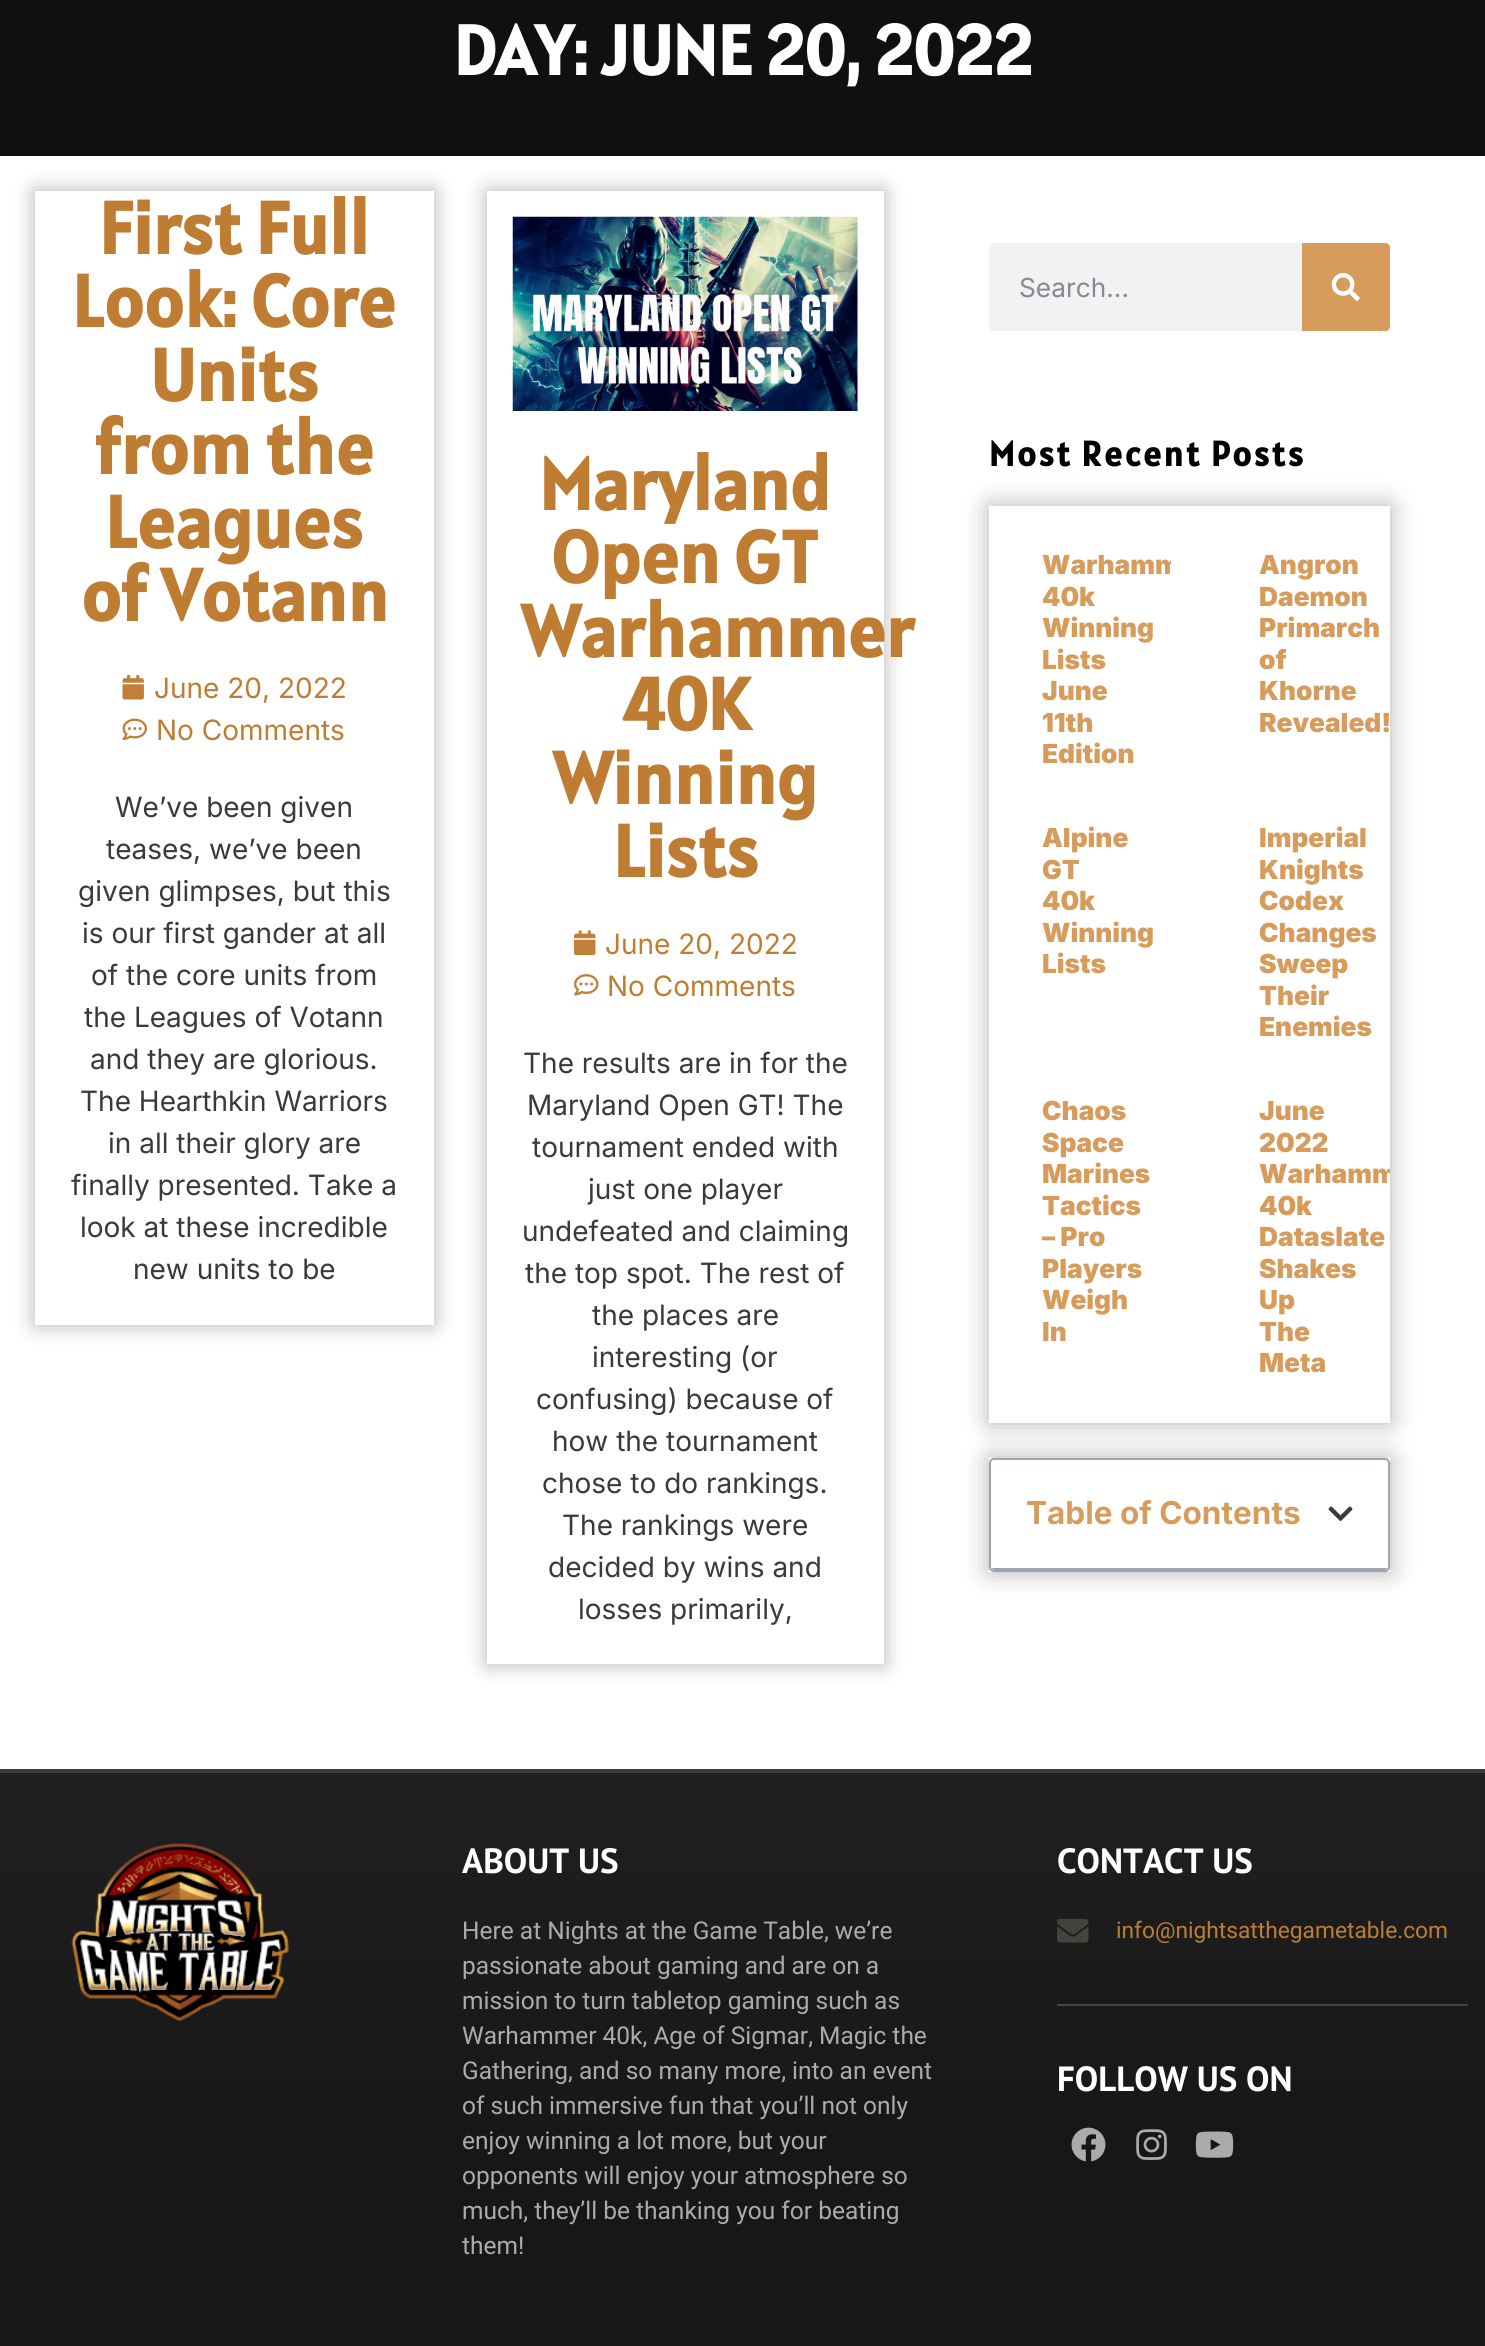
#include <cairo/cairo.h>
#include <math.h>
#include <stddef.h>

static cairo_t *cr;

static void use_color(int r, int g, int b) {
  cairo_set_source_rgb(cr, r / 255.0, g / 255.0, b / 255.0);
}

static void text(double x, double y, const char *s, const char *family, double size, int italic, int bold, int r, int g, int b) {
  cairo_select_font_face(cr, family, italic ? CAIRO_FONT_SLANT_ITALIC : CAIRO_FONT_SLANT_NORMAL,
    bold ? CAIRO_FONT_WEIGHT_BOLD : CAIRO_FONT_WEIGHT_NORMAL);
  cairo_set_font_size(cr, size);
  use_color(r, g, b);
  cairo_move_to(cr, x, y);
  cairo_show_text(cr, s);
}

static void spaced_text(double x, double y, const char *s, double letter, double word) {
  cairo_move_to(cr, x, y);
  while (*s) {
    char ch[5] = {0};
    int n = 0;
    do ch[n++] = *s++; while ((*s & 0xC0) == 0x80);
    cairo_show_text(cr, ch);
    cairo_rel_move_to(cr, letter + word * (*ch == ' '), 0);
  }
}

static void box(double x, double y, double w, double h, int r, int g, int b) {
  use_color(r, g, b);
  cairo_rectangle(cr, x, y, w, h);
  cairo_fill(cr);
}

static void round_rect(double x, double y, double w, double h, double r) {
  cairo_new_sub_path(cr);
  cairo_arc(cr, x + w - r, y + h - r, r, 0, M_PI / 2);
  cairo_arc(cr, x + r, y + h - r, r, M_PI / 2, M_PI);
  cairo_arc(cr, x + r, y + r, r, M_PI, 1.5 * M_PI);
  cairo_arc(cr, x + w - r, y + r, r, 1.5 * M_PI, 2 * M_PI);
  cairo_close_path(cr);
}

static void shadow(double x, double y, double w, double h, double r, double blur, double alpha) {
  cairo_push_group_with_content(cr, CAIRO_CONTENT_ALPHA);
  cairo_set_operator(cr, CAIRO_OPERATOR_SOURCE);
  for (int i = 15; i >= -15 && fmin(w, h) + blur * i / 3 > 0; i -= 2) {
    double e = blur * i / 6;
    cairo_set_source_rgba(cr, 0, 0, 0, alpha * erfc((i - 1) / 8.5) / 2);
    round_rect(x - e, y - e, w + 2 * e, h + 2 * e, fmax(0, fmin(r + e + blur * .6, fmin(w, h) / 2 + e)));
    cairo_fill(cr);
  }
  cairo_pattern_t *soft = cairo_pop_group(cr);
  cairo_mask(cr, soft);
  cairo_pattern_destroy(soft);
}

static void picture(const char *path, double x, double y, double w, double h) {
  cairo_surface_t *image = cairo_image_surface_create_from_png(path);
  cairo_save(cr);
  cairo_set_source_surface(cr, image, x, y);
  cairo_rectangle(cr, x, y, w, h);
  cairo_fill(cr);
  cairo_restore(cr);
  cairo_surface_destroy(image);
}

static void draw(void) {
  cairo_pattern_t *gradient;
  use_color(255, 255, 255);
  cairo_paint(cr);
  box(0, 0, 1485, 156, 16, 16, 16);
  cairo_save(cr);
  cairo_set_fill_rule(cr, CAIRO_FILL_RULE_EVEN_ODD);
  cairo_new_path(cr);
  cairo_move_to(cr, 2, 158);
  cairo_line_to(cr, 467, 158);
  cairo_line_to(cr, 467, 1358);
  cairo_line_to(cr, 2, 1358);
  cairo_close_path(cr);
  cairo_move_to(cr, 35, 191);
  cairo_line_to(cr, 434, 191);
  cairo_line_to(cr, 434, 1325);
  cairo_line_to(cr, 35, 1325);
  cairo_close_path(cr);
  cairo_clip(cr);
  use_color(0, 0, 0);
  shadow(35, 191, 399, 1134, 0, 10.5, 0.3);
  cairo_restore(cr);
  picture("img_01.png", 122, 675, 22, 25);
  picture("img_02.png", 122, 718, 25, 22);
  cairo_save(cr);
  cairo_set_fill_rule(cr, CAIRO_FILL_RULE_EVEN_ODD);
  cairo_new_path(cr);
  cairo_move_to(cr, 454, 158);
  cairo_line_to(cr, 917, 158);
  cairo_line_to(cr, 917, 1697);
  cairo_line_to(cr, 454, 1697);
  cairo_close_path(cr);
  cairo_move_to(cr, 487, 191);
  cairo_line_to(cr, 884, 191);
  cairo_line_to(cr, 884, 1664);
  cairo_line_to(cr, 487, 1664);
  cairo_close_path(cr);
  cairo_clip(cr);
  use_color(0, 0, 0);
  shadow(487, 191, 397, 1473, 0, 10.5, 0.3);
  cairo_restore(cr);
  picture("img_03.png", 512, 216, 346, 195);
  picture("img_04.png", 574, 930, 22, 26);
  picture("img_05.png", 574, 974, 25, 22);
  use_color(241, 242, 243);
  round_rect(989, 243, 401, 88, 5);
  cairo_fill(cr);
  use_color(215, 155, 91);
  cairo_new_path(cr);
  cairo_move_to(cr, 1302, 243);
  cairo_line_to(cr, 1385, 243);
  cairo_curve_to(cr, 1388, 243, 1390, 245, 1390, 248);
  cairo_line_to(cr, 1390, 326);
  cairo_curve_to(cr, 1390, 329, 1388, 331, 1385, 331);
  cairo_line_to(cr, 1302, 331);
  cairo_close_path(cr);
  cairo_fill(cr);
  picture("img_06.png", 1331, 273, 29, 28);
  cairo_save(cr);
  cairo_set_fill_rule(cr, CAIRO_FILL_RULE_EVEN_ODD);
  cairo_new_path(cr);
  cairo_move_to(cr, 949, 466);
  cairo_line_to(cr, 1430, 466);
  cairo_line_to(cr, 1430, 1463);
  cairo_line_to(cr, 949, 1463);
  cairo_close_path(cr);
  cairo_move_to(cr, 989, 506);
  cairo_line_to(cr, 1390, 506);
  cairo_line_to(cr, 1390, 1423);
  cairo_line_to(cr, 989, 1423);
  cairo_close_path(cr);
  cairo_clip(cr);
  use_color(0, 0, 0);
  shadow(989, 506, 401, 917, 0, 13, 0.3);
  cairo_restore(cr);
  box(1389, 515, 1, 882, 255, 255, 255);
  cairo_save(cr);
  cairo_set_fill_rule(cr, CAIRO_FILL_RULE_EVEN_ODD);
  cairo_new_path(cr);
  cairo_move_to(cr, 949, 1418);
  cairo_line_to(cr, 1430, 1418);
  cairo_line_to(cr, 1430, 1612);
  cairo_line_to(cr, 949, 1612);
  cairo_close_path(cr);
  cairo_move_to(cr, 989, 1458);
  cairo_line_to(cr, 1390, 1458);
  cairo_line_to(cr, 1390, 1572);
  cairo_line_to(cr, 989, 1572);
  cairo_close_path(cr);
  cairo_clip(cr);
  use_color(0, 0, 0);
  shadow(989, 1458, 401, 114, 0, 13, 0.3);
  cairo_restore(cr);
  round_rect(990, 1459, 399, 112, 4);
  use_color(157, 165, 174);
  cairo_stroke(cr);
  cairo_save(cr);
  round_rect(991, 1460, 397, 110, 4);
  cairo_clip(cr);
  box(991, 1568, 397, 2, 157, 165, 174);
  cairo_restore(cr);
  picture("img_07.png", 1328, 1506, 25, 15);
  gradient = cairo_pattern_create_linear(743, 1773, 743, 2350);
  cairo_pattern_add_color_stop_rgba(gradient, 0, 0.125, 0.125, 0.125, 1);
  cairo_pattern_add_color_stop_rgba(gradient, 0.65, 0.09, 0.09, 0.09, 1);
  cairo_set_source(cr, gradient);
  cairo_pattern_destroy(gradient);
  cairo_rectangle(cr, 0, 1773, 1485, 573);
  cairo_fill(cr);
  box(0, 1769, 1485, 4, 58, 58, 58);
  picture("img_08.png", 71, 1843, 218, 178);
  picture("img_09.png", 1057, 1918, 32, 25);
  box(1057, 2004, 411, 2, 67, 68, 61);
  picture("img_10.png", 1071, 2127, 35, 35);
  picture("img_11.png", 1136, 2129, 31, 31);
  picture("img_12.png", 1195, 2131, 39, 27);
  text(453, 75, "DAY: JUNE 20, 2022", "Alatsi", 70, 0, 1, 255, 255, 255);
  text(99, 254, "First Full", "Alatsi", 73.5, 0, 1, 191, 125, 51);
  text(72, 327, "Look: Core", "Alatsi", 73.5, 0, 1, 191, 125, 51);
  text(150, 401, "Units", "Alatsi", 73.5, 0, 1, 191, 125, 51);
  text(95, 474, "from the", "Alatsi", 73.5, 0, 1, 191, 125, 51);
  text(105, 548, "Leagues", "Alatsi", 73.5, 0, 1, 191, 125, 51);
  text(81, 621, "of Votann", "Alatsi", 73.5, 0, 1, 191, 125, 51);
  text(154, 698, "June 20, 2022", "Inter", 28, 0, 0, 191, 125, 51);
  text(156, 740, "No Comments", "Inter", 28, 0, 0, 191, 125, 51);
  text(115, 817, "We’ve been given", "Inter", 28, 0, 0, 58, 58, 58);
  text(106, 859, "teases, we’ve been", "Inter", 28, 0, 0, 58, 58, 58);
  text(78, 901, "given glimpses, but this", "Inter", 28, 0, 0, 58, 58, 58);
  text(82, 943, "is our first gander at all", "Inter", 28, 0, 0, 58, 58, 58);
  text(91, 985, "of the core units from", "Inter", 28, 0, 0, 58, 58, 58);
  text(84, 1027, "the Leagues of Votann", "Inter", 28, 0, 0, 58, 58, 58);
  text(90, 1069, "and they are glorious.", "Inter", 28, 0, 0, 58, 58, 58);
  text(80, 1111, "The Hearthkin Warriors", "Inter", 28, 0, 0, 58, 58, 58);
  text(108, 1153, "in all their glory are", "Inter", 28, 0, 0, 58, 58, 58);
  text(71, 1195, "finally presented. Take a", "Inter", 28, 0, 0, 58, 58, 58);
  text(80, 1237, "look at these incredible", "Inter", 28, 0, 0, 58, 58, 58);
  text(133, 1279, "new units to be", "Inter", 28, 0, 0, 58, 58, 58);
  text(539, 510, "Maryland", "Alatsi", 73.5, 0, 1, 191, 125, 51);
  text(551, 583, "Open GT", "Alatsi", 73.5, 0, 1, 191, 125, 51);
  text(521, 657, "Warhammer", "Alatsi", 73.5, 0, 1, 191, 125, 51);
  text(620, 730, "40K", "Alatsi", 73.5, 0, 1, 191, 125, 51);
  text(553, 804, "Winning", "Alatsi", 73.5, 0, 1, 191, 125, 51);
  text(613, 877, "Lists", "Alatsi", 73.5, 0, 1, 191, 125, 51);
  text(605, 954, "June 20, 2022", "Inter", 28, 0, 0, 191, 125, 51);
  text(607, 996, "No Comments", "Inter", 28, 0, 0, 191, 125, 51);
  text(523, 1073, "The results are in for the", "Inter", 28, 0, 0, 58, 58, 58);
  text(527, 1115, "Maryland Open GT! The", "Inter", 28, 0, 0, 58, 58, 58);
  text(532, 1157, "tournament ended with", "Inter", 28, 0, 0, 58, 58, 58);
  text(588, 1199, "just one player", "Inter", 28, 0, 0, 58, 58, 58);
  text(522, 1241, "undefeated and claiming", "Inter", 28, 0, 0, 58, 58, 58);
  text(525, 1283, "the top spot. The rest of", "Inter", 28, 0, 0, 58, 58, 58);
  text(592, 1325, "the places are", "Inter", 28, 0, 0, 58, 58, 58);
  text(592, 1367, "interesting (or", "Inter", 28, 0, 0, 58, 58, 58);
  text(536, 1409, "confusing) because of", "Inter", 28, 0, 0, 58, 58, 58);
  text(552, 1451, "how the tournament", "Inter", 28, 0, 0, 58, 58, 58);
  text(542, 1493, "chose to do rankings.", "Inter", 28, 0, 0, 58, 58, 58);
  text(562, 1535, "The rankings were", "Inter", 28, 0, 0, 58, 58, 58);
  text(548, 1577, "decided by wins and", "Inter", 28, 0, 0, 58, 58, 58);
  text(578, 1619, "losses primarily,", "Inter", 28, 0, 0, 58, 58, 58);
  text(1019, 297, "Search...", "Inter", 26.25, 0, 0, 134, 138, 142);
  cairo_select_font_face(cr, "Alatsi", CAIRO_FONT_SLANT_NORMAL, CAIRO_FONT_WEIGHT_BOLD);
  cairo_set_font_size(cr, 35);
  use_color(0, 0, 0);
  spaced_text(989, 466, "Most Recent Posts", 2.5, 0);
  cairo_save(cr);
  cairo_rectangle(cr, 989, 515, 182, 273);
  cairo_clip(cr);
  text(1042, 574, "Warhamm", "Inter Black", 26.25, 0, 0, 215, 155, 91);
  cairo_restore(cr);
  text(1042, 606, "40k", "Inter Black", 26.25, 0, 0, 215, 155, 91);
  text(1042, 637, "Winning", "Inter Black", 26.25, 0, 0, 215, 155, 91);
  text(1042, 669, "Lists", "Inter Black", 26.25, 0, 0, 215, 155, 91);
  text(1042, 700, "June", "Inter Black", 26.25, 0, 0, 215, 155, 91);
  text(1042, 732, "11th", "Inter Black", 26.25, 0, 0, 215, 155, 91);
  text(1042, 763, "Edition", "Inter Black", 26.25, 0, 0, 215, 155, 91);
  text(1259, 574, "Angron", "Inter Black", 26.25, 0, 0, 215, 155, 91);
  text(1259, 606, "Daemon", "Inter Black", 26.25, 0, 0, 215, 155, 91);
  text(1259, 637, "Primarch", "Inter Black", 26.25, 0, 0, 215, 155, 91);
  text(1259, 669, "of", "Inter Black", 26.25, 0, 0, 215, 155, 91);
  text(1259, 700, "Khorne", "Inter Black", 26.25, 0, 0, 215, 155, 91);
  text(1259, 732, "Revealed!", "Inter Black", 26.25, 0, 0, 215, 155, 91);
  text(1042, 847, "Alpine", "Inter Black", 26.25, 0, 0, 215, 155, 91);
  text(1042, 879, "GT", "Inter Black", 26.25, 0, 0, 215, 155, 91);
  text(1042, 910, "40k", "Inter Black", 26.25, 0, 0, 215, 155, 91);
  text(1042, 942, "Winning", "Inter Black", 26.25, 0, 0, 215, 155, 91);
  text(1042, 973, "Lists", "Inter Black", 26.25, 0, 0, 215, 155, 91);
  text(1259, 847, "Imperial", "Inter Black", 26.25, 0, 0, 215, 155, 91);
  text(1259, 879, "Knights", "Inter Black", 26.25, 0, 0, 215, 155, 91);
  text(1259, 910, "Codex", "Inter Black", 26.25, 0, 0, 215, 155, 91);
  text(1259, 942, "Changes", "Inter Black", 26.25, 0, 0, 215, 155, 91);
  text(1259, 973, "Sweep", "Inter Black", 26.25, 0, 0, 215, 155, 91);
  text(1259, 1005, "Their", "Inter Black", 26.25, 0, 0, 215, 155, 91);
  text(1259, 1036, "Enemies", "Inter Black", 26.25, 0, 0, 215, 155, 91);
  text(1042, 1120, "Chaos", "Inter Black", 26.25, 0, 0, 215, 155, 91);
  text(1042, 1152, "Space", "Inter Black", 26.25, 0, 0, 215, 155, 91);
  text(1042, 1183, "Marines", "Inter Black", 26.25, 0, 0, 215, 155, 91);
  text(1042, 1215, "Tactics", "Inter Black", 26.25, 0, 0, 215, 155, 91);
  text(1042, 1246, "– Pro", "Inter Black", 26.25, 0, 0, 215, 155, 91);
  text(1042, 1278, "Players", "Inter Black", 26.25, 0, 0, 215, 155, 91);
  text(1042, 1309, "Weigh", "Inter Black", 26.25, 0, 0, 215, 155, 91);
  text(1042, 1341, "In", "Inter Black", 26.25, 0, 0, 215, 155, 91);
  text(1259, 1120, "June", "Inter Black", 26.25, 0, 0, 215, 155, 91);
  text(1259, 1152, "2022", "Inter Black", 26.25, 0, 0, 215, 155, 91);
  cairo_save(cr);
  cairo_rectangle(cr, 1206, 1061, 184, 336);
  cairo_clip(cr);
  text(1259, 1183, "Warhamm", "Inter Black", 26.25, 0, 0, 215, 155, 91);
  cairo_restore(cr);
  text(1259, 1215, "40k", "Inter Black", 26.25, 0, 0, 215, 155, 91);
  text(1259, 1246, "Dataslate", "Inter Black", 26.25, 0, 0, 215, 155, 91);
  text(1259, 1278, "Shakes", "Inter Black", 26.25, 0, 0, 215, 155, 91);
  text(1259, 1309, "Up", "Inter Black", 26.25, 0, 0, 215, 155, 91);
  text(1259, 1341, "The", "Inter Black", 26.25, 0, 0, 215, 155, 91);
  text(1259, 1372, "Meta", "Inter Black", 26.25, 0, 0, 215, 155, 91);
  text(1026, 1524, "Table of Contents", "Inter", 31.5, 0, 1, 215, 155, 91);
  text(462, 1873, "ABOUT US", "PT Sans", 35, 0, 1, 255, 255, 255);
  text(462, 1939, "Here at Nights at the Game Table, we’re", "Roboto", 24.5, 0, 0, 171, 171, 171);
  text(462, 1974, "passionate about gaming and are on a", "Roboto", 24.5, 0, 0, 171, 171, 171);
  text(462, 2009, "mission to turn tabletop gaming such as", "Roboto", 24.5, 0, 0, 171, 171, 171);
  text(462, 2044, "Warhammer 40k, Age of Sigmar, Magic the", "Roboto", 24.5, 0, 0, 171, 171, 171);
  text(462, 2079, "Gathering, and so many more, into an event", "Roboto", 24.5, 0, 0, 171, 171, 171);
  text(462, 2114, "of such immersive fun that you’ll not only", "Roboto", 24.5, 0, 0, 171, 171, 171);
  text(462, 2149, "enjoy winning a lot more, but your", "Roboto", 24.5, 0, 0, 171, 171, 171);
  text(462, 2184, "opponents will enjoy your atmosphere so", "Roboto", 24.5, 0, 0, 171, 171, 171);
  text(462, 2219, "much, they’ll be thanking you for beating", "Roboto", 24.5, 0, 0, 171, 171, 171);
  text(462, 2254, "them!", "Roboto", 24.5, 0, 0, 171, 171, 171);
  text(1057, 1873, "CONTACT US", "PT Sans", 35, 0, 1, 255, 255, 255);
  text(1116, 1938, "info@nightsatthegametable.com", "Roboto", 22.75, 0, 0, 191, 125, 51);
  text(1057, 2091, "FOLLOW US ON", "PT Sans", 35, 0, 1, 255, 255, 255);
}

int main(void) {
  cairo_surface_t *surface = cairo_image_surface_create(CAIRO_FORMAT_RGB24, 1485, 2346);
  cr = cairo_create(surface);
  cairo_font_options_t *options = cairo_font_options_create();
  cairo_font_options_set_hint_metrics(options, CAIRO_HINT_METRICS_OFF);
  cairo_font_options_set_hint_style(options, CAIRO_HINT_STYLE_NONE);
  cairo_set_font_options(cr, options);
  cairo_set_miter_limit(cr, 4);
  draw();
  cairo_surface_write_to_png(surface, "out.png");
  cairo_font_options_destroy(options);
  cairo_destroy(cr);
  cairo_surface_destroy(surface);
  return 0;
}
